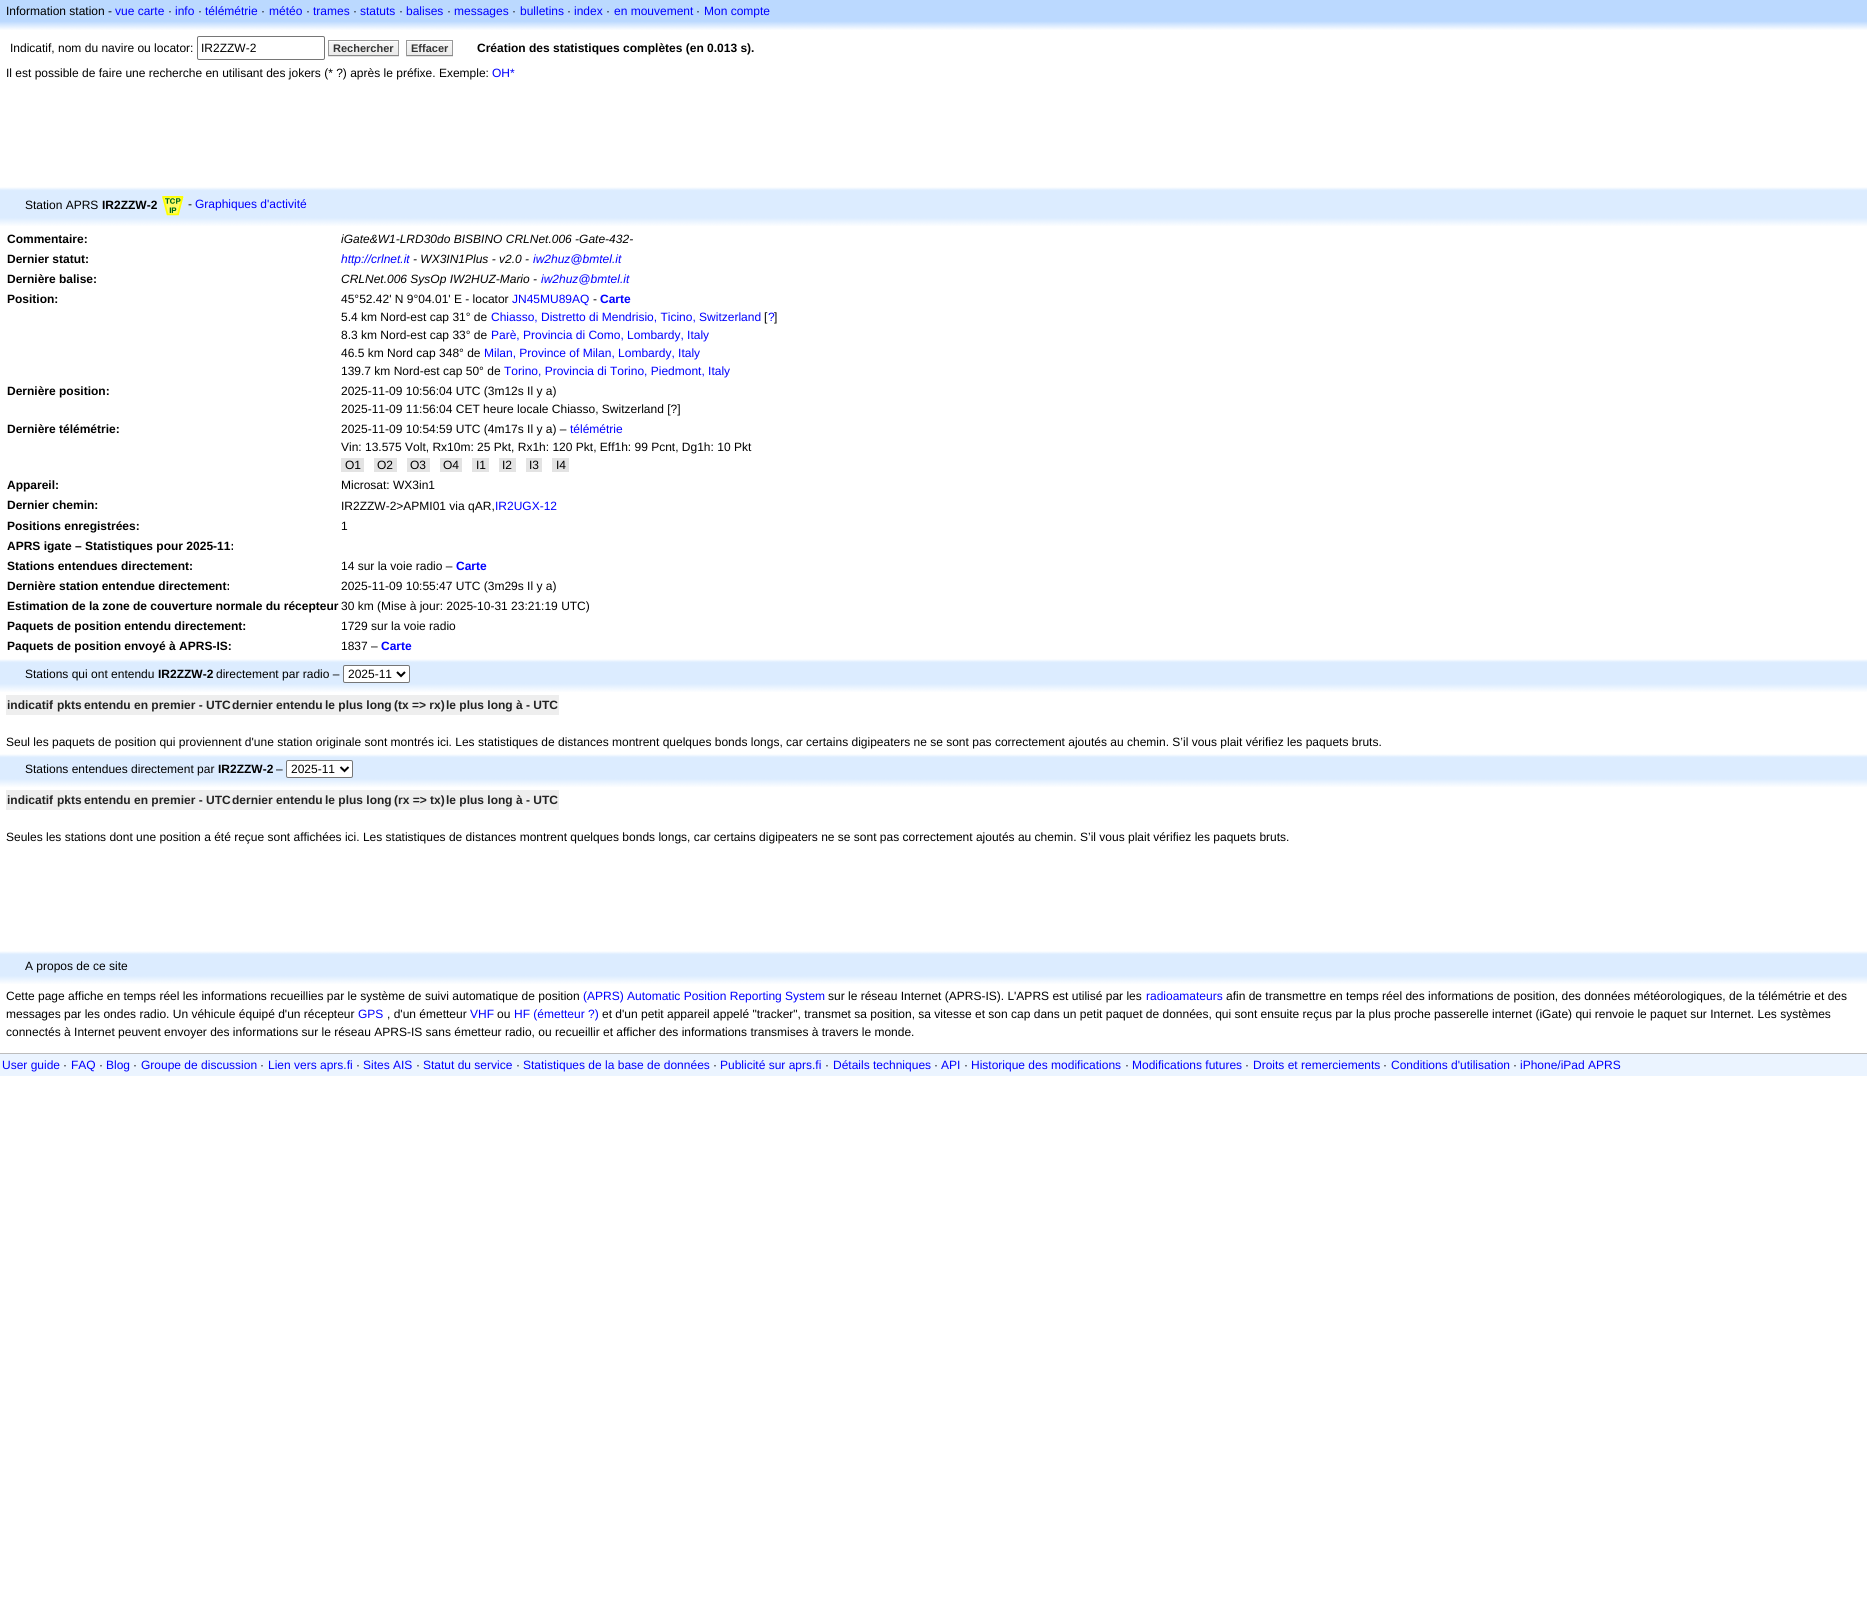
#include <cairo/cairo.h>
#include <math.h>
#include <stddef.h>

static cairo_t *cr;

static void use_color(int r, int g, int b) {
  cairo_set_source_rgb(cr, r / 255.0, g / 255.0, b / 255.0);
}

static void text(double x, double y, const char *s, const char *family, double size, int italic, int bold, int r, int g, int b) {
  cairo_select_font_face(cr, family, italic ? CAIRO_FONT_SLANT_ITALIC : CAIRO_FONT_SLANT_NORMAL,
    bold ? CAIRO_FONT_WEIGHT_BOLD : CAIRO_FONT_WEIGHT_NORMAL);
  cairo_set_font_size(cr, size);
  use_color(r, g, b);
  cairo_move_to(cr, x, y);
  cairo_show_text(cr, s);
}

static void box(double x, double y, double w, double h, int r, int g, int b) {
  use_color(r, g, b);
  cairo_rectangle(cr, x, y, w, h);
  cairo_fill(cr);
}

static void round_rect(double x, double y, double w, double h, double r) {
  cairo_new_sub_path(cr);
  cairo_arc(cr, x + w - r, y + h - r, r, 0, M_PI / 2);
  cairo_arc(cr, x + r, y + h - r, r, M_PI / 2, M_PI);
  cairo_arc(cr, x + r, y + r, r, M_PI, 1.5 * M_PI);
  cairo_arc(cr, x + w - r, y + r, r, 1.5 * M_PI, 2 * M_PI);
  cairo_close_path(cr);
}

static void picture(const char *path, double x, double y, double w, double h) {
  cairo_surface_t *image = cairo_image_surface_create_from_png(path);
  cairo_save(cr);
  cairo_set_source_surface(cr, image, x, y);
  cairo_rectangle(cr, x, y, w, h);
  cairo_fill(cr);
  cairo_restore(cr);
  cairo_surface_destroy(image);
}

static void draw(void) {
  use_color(255, 255, 255);
  cairo_paint(cr);
  box(0, 0, 1867, 20, 187, 217, 255);
  picture("img_01.png", 0, 20, 1867, 10);
  round_rect(197.5, 36.5, 127, 23, 1.5);
  use_color(118, 118, 118);
  cairo_set_line_width(cr, 1);
  cairo_stroke(cr);
  box(328, 56, 71, 1, 230, 230, 230);
  picture("img_02.png", 329, 41, 69, 14);
  box(328, 40, 71, 1, 153, 153, 153);
  box(398, 40, 1, 16, 153, 153, 153);
  box(328, 55, 71, 1, 136, 136, 136);
  box(328, 40, 1, 16, 153, 153, 153);
  box(406, 56, 47, 1, 230, 230, 230);
  picture("img_03.png", 407, 41, 45, 14);
  box(406, 40, 47, 1, 153, 153, 153);
  box(452, 40, 1, 16, 153, 153, 153);
  box(406, 55, 47, 1, 136, 136, 136);
  box(406, 40, 1, 16, 153, 153, 153);
  picture("img_04.png", 0, 187, 1867, 4);
  box(0, 191, 1867, 26, 220, 236, 255);
  picture("img_05.png", 162, 196, 22, 20);
  picture("img_06.png", 0, 217, 1867, 9);
  box(341, 458, 23, 14, 227, 227, 227);
  box(374, 458, 23, 14, 227, 227, 227);
  box(407, 458, 23, 14, 227, 227, 227);
  box(440, 458, 22, 14, 227, 227, 227);
  box(472, 458, 17, 14, 227, 227, 227);
  box(499, 458, 17, 14, 227, 227, 227);
  box(526, 458, 16, 14, 227, 227, 227);
  box(552, 458, 17, 14, 227, 227, 227);
  picture("img_04.png", 0, 659, 1867, 4);
  box(0, 663, 1867, 20, 220, 236, 255);
  use_color(255, 255, 255);
  round_rect(343.5, 665.5, 66, 17, 1.5);
  cairo_fill_preserve(cr);
  use_color(118, 118, 118);
  cairo_stroke(cr);
  cairo_new_path(cr);
  cairo_move_to(cr, 397, 672);
  cairo_line_to(cr, 401, 676);
  cairo_line_to(cr, 405, 672);
  use_color(0, 0, 0);
  cairo_set_line_width(cr, 2);
  cairo_stroke(cr);
  picture("img_06.png", 0, 683, 1867, 9);
  box(6, 695, 553, 20, 238, 238, 238);
  picture("img_04.png", 0, 754, 1867, 4);
  box(0, 758, 1867, 20, 220, 236, 255);
  use_color(255, 255, 255);
  round_rect(286.5, 760.5, 66, 17, 1.5);
  cairo_fill_preserve(cr);
  use_color(118, 118, 118);
  cairo_set_line_width(cr, 1);
  cairo_stroke(cr);
  cairo_new_path(cr);
  cairo_move_to(cr, 340.5, 767);
  cairo_line_to(cr, 344.5, 771);
  cairo_line_to(cr, 348.5, 767);
  use_color(0, 0, 0);
  cairo_set_line_width(cr, 2);
  cairo_stroke(cr);
  picture("img_06.png", 0, 778, 1867, 9);
  box(6, 790, 553, 20, 238, 238, 238);
  picture("img_04.png", 0, 951, 1867, 4);
  box(0, 955, 1867, 20, 220, 236, 255);
  picture("img_06.png", 0, 975, 1867, 9);
  box(0, 1054, 1867, 22, 235, 244, 255);
  box(0, 1053, 1867, 1, 189, 189, 189);
  text(6, 15, "Information station -", "Liberation Sans", 12, 0, 0, 0, 0, 0);
  text(115, 15, "vue carte", "Liberation Sans", 12, 0, 0, 0, 0, 255);
  text(168, 15, "·", "Liberation Sans", 12, 0, 0, 0, 0, 0);
  text(175, 15, "info", "Liberation Sans", 12, 0, 0, 0, 0, 255);
  text(198, 15, "·", "Liberation Sans", 12, 0, 0, 0, 0, 0);
  text(205, 15, "télémétrie", "Liberation Sans", 12, 0, 0, 0, 0, 255);
  text(261, 15, "·", "Liberation Sans", 12, 0, 0, 0, 0, 0);
  text(269, 15, "météo", "Liberation Sans", 12, 0, 0, 0, 0, 255);
  text(306, 15, "·", "Liberation Sans", 12, 0, 0, 0, 0, 0);
  text(313, 15, "trames", "Liberation Sans", 12, 0, 0, 0, 0, 255);
  text(353, 15, "·", "Liberation Sans", 12, 0, 0, 0, 0, 0);
  text(360, 15, "statuts", "Liberation Sans", 12, 0, 0, 0, 0, 255);
  text(399, 15, "·", "Liberation Sans", 12, 0, 0, 0, 0, 0);
  text(406, 15, "balises", "Liberation Sans", 12, 0, 0, 0, 0, 255);
  text(447, 15, "·", "Liberation Sans", 12, 0, 0, 0, 0, 0);
  text(454, 15, "messages", "Liberation Sans", 12, 0, 0, 0, 0, 255);
  text(512, 15, "·", "Liberation Sans", 12, 0, 0, 0, 0, 0);
  text(520, 15, "bulletins", "Liberation Sans", 12, 0, 0, 0, 0, 255);
  text(567, 15, "·", "Liberation Sans", 12, 0, 0, 0, 0, 0);
  text(574, 15, "index", "Liberation Sans", 12, 0, 0, 0, 0, 255);
  text(606, 15, "·", "Liberation Sans", 12, 0, 0, 0, 0, 0);
  text(614, 15, "en mouvement", "Liberation Sans", 12, 0, 0, 0, 0, 255);
  text(696, 15, "·", "Liberation Sans", 12, 0, 0, 0, 0, 0);
  text(704, 15, "Mon compte", "Liberation Sans", 12, 0, 0, 0, 0, 255);
  text(10, 52, "Indicatif, nom du navire ou locator:", "Liberation Sans", 12, 0, 0, 0, 0, 0);
  text(201, 52, "IR2ZZW-2", "Liberation Sans", 12, 0, 0, 0, 0, 0);
  text(333, 52, "Rechercher", "Liberation Sans", 11, 0, 1, 51, 51, 51);
  text(411, 52, "Effacer", "Liberation Sans", 11, 0, 1, 51, 51, 51);
  text(477, 52, "Création des statistiques complètes (en 0.013 s).", "Liberation Sans", 12, 0, 1, 0, 0, 0);
  text(6, 77, "Il est possible de faire une recherche en utilisant des jokers (* ?) après le préfixe. Exemple:", "Liberation Sans", 12, 0, 0, 0, 0, 0);
  text(492, 77, "OH*", "Liberation Sans", 12, 0, 0, 0, 0, 255);
  text(25, 209, "Station APRS", "Liberation Sans", 12, 0, 0, 0, 0, 0);
  text(102, 209, "IR2ZZW-2", "Liberation Sans", 12, 0, 1, 0, 0, 0);
  text(188, 208, "-", "Liberation Sans", 12, 0, 0, 0, 0, 0);
  text(195, 208, "Graphiques d'activité", "Liberation Sans", 12, 0, 0, 0, 0, 255);
  text(7, 243, "Commentaire:", "Liberation Sans", 12, 0, 1, 0, 0, 0);
  text(341, 243, "iGate&W1-LRD30do BISBINO CRLNet.006 -Gate-432-", "Liberation Sans", 12, 1, 0, 0, 0, 0);
  text(7, 263, "Dernier statut:", "Liberation Sans", 12, 0, 1, 0, 0, 0);
  text(341, 263, "http://crlnet.it", "Liberation Sans", 12, 1, 0, 0, 0, 255);
  text(413, 263, "- WX3IN1Plus - v2.0 -", "Liberation Sans", 12, 1, 0, 0, 0, 0);
  text(533, 263, "iw2huz@bmtel.it", "Liberation Sans", 12, 1, 0, 0, 0, 255);
  text(7, 283, "Dernière balise:", "Liberation Sans", 12, 0, 1, 0, 0, 0);
  text(341, 283, "CRLNet.006 SysOp IW2HUZ-Mario -", "Liberation Sans", 12, 1, 0, 0, 0, 0);
  text(541, 283, "iw2huz@bmtel.it", "Liberation Sans", 12, 1, 0, 0, 0, 255);
  text(7, 303, "Position:", "Liberation Sans", 12, 0, 1, 0, 0, 0);
  text(341, 303, "45°52.42' N 9°04.01' E - locator", "Liberation Sans", 12, 0, 0, 0, 0, 0);
  text(512, 303, "JN45MU89AQ", "Liberation Sans", 12, 0, 0, 0, 0, 255);
  text(593, 303, "-", "Liberation Sans", 12, 0, 0, 0, 0, 0);
  text(600, 303, "Carte", "Liberation Sans", 12, 0, 1, 0, 0, 255);
  text(341, 321, "5.4 km Nord-est cap 31° de", "Liberation Sans", 12, 0, 0, 0, 0, 0);
  text(491, 321, "Chiasso, Distretto di Mendrisio, Ticino, Switzerland", "Liberation Sans", 12, 0, 0, 0, 0, 255);
  text(764, 321, "[", "Liberation Sans", 12, 0, 0, 0, 0, 0);
  text(768, 321, "?", "Liberation Sans", 12, 0, 0, 0, 0, 255);
  text(774, 321, "]", "Liberation Sans", 12, 0, 0, 0, 0, 0);
  text(341, 339, "8.3 km Nord-est cap 33° de", "Liberation Sans", 12, 0, 0, 0, 0, 0);
  text(491, 339, "Parè, Provincia di Como, Lombardy, Italy", "Liberation Sans", 12, 0, 0, 0, 0, 255);
  text(341, 357, "46.5 km Nord cap 348° de", "Liberation Sans", 12, 0, 0, 0, 0, 0);
  text(484, 357, "Milan, Province of Milan, Lombardy, Italy", "Liberation Sans", 12, 0, 0, 0, 0, 255);
  text(341, 375, "139.7 km Nord-est cap 50° de", "Liberation Sans", 12, 0, 0, 0, 0, 0);
  text(504, 375, "Torino, Provincia di Torino, Piedmont, Italy", "Liberation Sans", 12, 0, 0, 0, 0, 255);
  text(7, 395, "Dernière position:", "Liberation Sans", 12, 0, 1, 0, 0, 0);
  text(341, 395, "2025-11-09 10:56:04 UTC (3m12s Il y a)", "Liberation Sans", 12, 0, 0, 0, 0, 0);
  text(341, 413, "2025-11-09 11:56:04 CET heure locale Chiasso, Switzerland [?]", "Liberation Sans", 12, 0, 0, 0, 0, 0);
  text(7, 433, "Dernière télémétrie:", "Liberation Sans", 12, 0, 1, 0, 0, 0);
  text(341, 433, "2025-11-09 10:54:59 UTC (4m17s Il y a) –", "Liberation Sans", 12, 0, 0, 0, 0, 0);
  text(570, 433, "télémétrie", "Liberation Sans", 12, 0, 0, 0, 0, 255);
  text(341, 451, "Vin: 13.575 Volt, Rx10m: 25 Pkt, Rx1h: 120 Pkt, Eff1h: 99 Pcnt, Dg1h: 10 Pkt", "Liberation Sans", 12, 0, 0, 0, 0, 0);
  text(345, 469, "O1", "Liberation Sans", 12, 0, 0, 0, 0, 0);
  text(377, 469, "O2", "Liberation Sans", 12, 0, 0, 0, 0, 0);
  text(410, 469, "O3", "Liberation Sans", 12, 0, 0, 0, 0, 0);
  text(443, 469, "O4", "Liberation Sans", 12, 0, 0, 0, 0, 0);
  text(476, 469, "I1", "Liberation Sans", 12, 0, 0, 0, 0, 0);
  text(502, 469, "I2", "Liberation Sans", 12, 0, 0, 0, 0, 0);
  text(529, 469, "I3", "Liberation Sans", 12, 0, 0, 0, 0, 0);
  text(556, 469, "I4", "Liberation Sans", 12, 0, 0, 0, 0, 0);
  text(7, 489, "Appareil:", "Liberation Sans", 12, 0, 1, 0, 0, 0);
  text(341, 489, "Microsat: WX3in1", "Liberation Sans", 12, 0, 0, 0, 0, 0);
  text(7, 509, "Dernier chemin:", "Liberation Sans", 12, 0, 1, 0, 0, 0);
  text(341, 510, "IR2ZZW-2>APMI01 via qAR,", "Liberation Sans", 12, 0, 0, 0, 0, 0);
  text(495, 510, "IR2UGX-12", "Liberation Sans", 12, 0, 0, 0, 0, 255);
  text(7, 530, "Positions enregistrées:", "Liberation Sans", 12, 0, 1, 0, 0, 0);
  text(341, 530, "1", "Liberation Sans", 12, 0, 0, 0, 0, 0);
  text(7, 550, "APRS igate – Statistiques pour 2025-11:", "Liberation Sans", 12, 0, 1, 0, 0, 0);
  text(7, 570, "Stations entendues directement:", "Liberation Sans", 12, 0, 1, 0, 0, 0);
  text(341, 570, "14 sur la voie radio –", "Liberation Sans", 12, 0, 0, 0, 0, 0);
  text(456, 570, "Carte", "Liberation Sans", 12, 0, 1, 0, 0, 255);
  text(7, 590, "Dernière station entendue directement:", "Liberation Sans", 12, 0, 1, 0, 0, 0);
  text(341, 590, "2025-11-09 10:55:47 UTC (3m29s Il y a)", "Liberation Sans", 12, 0, 0, 0, 0, 0);
  text(7, 610, "Estimation de la zone de couverture normale du récepteur", "Liberation Sans", 12, 0, 1, 0, 0, 0);
  text(341, 610, "30 km (Mise à jour: 2025-10-31 23:21:19 UTC)", "Liberation Sans", 12, 0, 0, 0, 0, 0);
  text(7, 630, "Paquets de position entendu directement:", "Liberation Sans", 12, 0, 1, 0, 0, 0);
  text(341, 630, "1729 sur la voie radio", "Liberation Sans", 12, 0, 0, 0, 0, 0);
  text(7, 650, "Paquets de position envoyé à APRS-IS:", "Liberation Sans", 12, 0, 1, 0, 0, 0);
  text(341, 650, "1837 –", "Liberation Sans", 12, 0, 0, 0, 0, 0);
  text(381, 650, "Carte", "Liberation Sans", 12, 0, 1, 0, 0, 255);
  text(25, 678, "Stations qui ont entendu", "Liberation Sans", 12, 0, 0, 0, 0, 0);
  text(158, 678, "IR2ZZW-2", "Liberation Sans", 12, 0, 1, 0, 0, 0);
  text(216, 678, "directement par radio –", "Liberation Sans", 12, 0, 0, 0, 0, 0);
  text(348, 678, "2025-11", "Liberation Sans", 12, 0, 0, 0, 0, 0);
  text(7, 709, "indicatif", "Liberation Sans", 12, 0, 1, 34, 34, 34);
  text(57, 709, "pkts", "Liberation Sans", 12, 0, 1, 34, 34, 34);
  text(84, 709, "entendu en premier - UTC", "Liberation Sans", 12, 0, 1, 34, 34, 34);
  text(232, 709, "dernier entendu", "Liberation Sans", 12, 0, 1, 34, 34, 34);
  text(325, 709, "le plus long", "Liberation Sans", 12, 0, 1, 34, 34, 34);
  text(394, 709, "(tx => rx)", "Liberation Sans", 12, 0, 1, 34, 34, 34);
  text(446, 709, "le plus long à - UTC", "Liberation Sans", 12, 0, 1, 34, 34, 34);
  text(6, 746, "Seul les paquets de position qui proviennent d'une station originale sont montrés ici. Les statistiques de distances montrent quelques bonds longs, car certains digipeaters ne se sont pas correctement ajoutés au chemin. S’il vous plait vérifiez les paquets bruts.", "Liberation Sans", 12, 0, 0, 0, 0, 0);
  text(25, 773, "Stations entendues directement par", "Liberation Sans", 12, 0, 0, 0, 0, 0);
  text(218, 773, "IR2ZZW-2", "Liberation Sans", 12, 0, 1, 0, 0, 0);
  text(276, 773, "–", "Liberation Sans", 12, 0, 0, 0, 0, 0);
  text(291, 773, "2025-11", "Liberation Sans", 12, 0, 0, 0, 0, 0);
  text(7, 804, "indicatif", "Liberation Sans", 12, 0, 1, 34, 34, 34);
  text(57, 804, "pkts", "Liberation Sans", 12, 0, 1, 34, 34, 34);
  text(84, 804, "entendu en premier - UTC", "Liberation Sans", 12, 0, 1, 34, 34, 34);
  text(232, 804, "dernier entendu", "Liberation Sans", 12, 0, 1, 34, 34, 34);
  text(325, 804, "le plus long", "Liberation Sans", 12, 0, 1, 34, 34, 34);
  text(394, 804, "(rx => tx)", "Liberation Sans", 12, 0, 1, 34, 34, 34);
  text(446, 804, "le plus long à - UTC", "Liberation Sans", 12, 0, 1, 34, 34, 34);
  text(6, 841, "Seules les stations dont une position a été reçue sont affichées ici. Les statistiques de distances montrent quelques bonds longs, car certains digipeaters ne se sont pas correctement ajoutés au chemin. S’il vous plait vérifiez les paquets bruts.", "Liberation Sans", 12, 0, 0, 0, 0, 0);
  text(25, 970, "A propos de ce site", "Liberation Sans", 12, 0, 0, 0, 0, 0);
  text(6, 1000, "Cette page affiche en temps réel les informations recueillies par le système de suivi automatique de position", "Liberation Sans", 12, 0, 0, 0, 0, 0);
  text(583, 1000, "(APRS) Automatic Position Reporting System", "Liberation Sans", 12, 0, 0, 0, 0, 255);
  text(828, 1000, "sur le réseau Internet (APRS-IS). L'APRS est utilisé par les", "Liberation Sans", 12, 0, 0, 0, 0, 0);
  text(1146, 1000, "radioamateurs", "Liberation Sans", 12, 0, 0, 0, 0, 255);
  text(1226, 1000, "afin de transmettre en temps réel des informations de position, des données météorologiques, de la télémétrie et des", "Liberation Sans", 12, 0, 0, 0, 0, 0);
  text(6, 1018, "messages par les ondes radio. Un véhicule équipé d'un récepteur", "Liberation Sans", 12, 0, 0, 0, 0, 0);
  text(358, 1018, "GPS", "Liberation Sans", 12, 0, 0, 0, 0, 255);
  text(387, 1018, ", d'un émetteur", "Liberation Sans", 12, 0, 0, 0, 0, 0);
  text(470, 1018, "VHF", "Liberation Sans", 12, 0, 0, 0, 0, 255);
  text(497, 1018, "ou", "Liberation Sans", 12, 0, 0, 0, 0, 0);
  text(514, 1018, "HF (émetteur ?)", "Liberation Sans", 12, 0, 0, 0, 0, 255);
  text(602, 1018, "et d'un petit appareil appelé \"tracker\", transmet sa position, sa vitesse et son cap dans un petit paquet de données, qui sont ensuite reçus par la plus proche passerelle internet (iGate) qui renvoie le paquet sur Internet. Les systèmes", "Liberation Sans", 12, 0, 0, 0, 0, 0);
  text(6, 1036, "connectés à Internet peuvent envoyer des informations sur le réseau APRS-IS sans émetteur radio, ou recueillir et afficher des informations transmises à travers le monde.", "Liberation Sans", 12, 0, 0, 0, 0, 0);
  text(2, 1069, "User guide", "Liberation Sans", 12, 0, 0, 0, 0, 255);
  text(63, 1069, "·", "Liberation Sans", 12, 0, 0, 0, 0, 0);
  text(71, 1069, "FAQ", "Liberation Sans", 12, 0, 0, 0, 0, 255);
  text(99, 1069, "·", "Liberation Sans", 12, 0, 0, 0, 0, 0);
  text(106, 1069, "Blog", "Liberation Sans", 12, 0, 0, 0, 0, 255);
  text(133, 1069, "·", "Liberation Sans", 12, 0, 0, 0, 0, 0);
  text(141, 1069, "Groupe de discussion", "Liberation Sans", 12, 0, 0, 0, 0, 255);
  text(260, 1069, "·", "Liberation Sans", 12, 0, 0, 0, 0, 0);
  text(268, 1069, "Lien vers aprs.fi", "Liberation Sans", 12, 0, 0, 0, 0, 255);
  text(356, 1069, "·", "Liberation Sans", 12, 0, 0, 0, 0, 0);
  text(363, 1069, "Sites AIS", "Liberation Sans", 12, 0, 0, 0, 0, 255);
  text(416, 1069, "·", "Liberation Sans", 12, 0, 0, 0, 0, 0);
  text(423, 1069, "Statut du service", "Liberation Sans", 12, 0, 0, 0, 0, 255);
  text(516, 1069, "·", "Liberation Sans", 12, 0, 0, 0, 0, 0);
  text(523, 1069, "Statistiques de la base de données", "Liberation Sans", 12, 0, 0, 0, 0, 255);
  text(713, 1069, "·", "Liberation Sans", 12, 0, 0, 0, 0, 0);
  text(720, 1069, "Publicité sur aprs.fi", "Liberation Sans", 12, 0, 0, 0, 0, 255);
  text(825, 1069, "·", "Liberation Sans", 12, 0, 0, 0, 0, 0);
  text(833, 1069, "Détails techniques", "Liberation Sans", 12, 0, 0, 0, 0, 255);
  text(934, 1069, "·", "Liberation Sans", 12, 0, 0, 0, 0, 0);
  text(941, 1069, "API", "Liberation Sans", 12, 0, 0, 0, 0, 255);
  text(964, 1069, "·", "Liberation Sans", 12, 0, 0, 0, 0, 0);
  text(971, 1069, "Historique des modifications", "Liberation Sans", 12, 0, 0, 0, 0, 255);
  text(1125, 1069, "·", "Liberation Sans", 12, 0, 0, 0, 0, 0);
  text(1132, 1069, "Modifications futures", "Liberation Sans", 12, 0, 0, 0, 0, 255);
  text(1245, 1069, "·", "Liberation Sans", 12, 0, 0, 0, 0, 0);
  text(1253, 1069, "Droits et remerciements", "Liberation Sans", 12, 0, 0, 0, 0, 255);
  text(1383, 1069, "·", "Liberation Sans", 12, 0, 0, 0, 0, 0);
  text(1391, 1069, "Conditions d'utilisation", "Liberation Sans", 12, 0, 0, 0, 0, 255);
  text(1513, 1069, "·", "Liberation Sans", 12, 0, 0, 0, 0, 0);
  text(1520, 1069, "iPhone/iPad APRS", "Liberation Sans", 12, 0, 0, 0, 0, 255);
}

int main(void) {
  cairo_surface_t *surface = cairo_image_surface_create(CAIRO_FORMAT_RGB24, 1867, 1620);
  cr = cairo_create(surface);
  cairo_font_options_t *options = cairo_font_options_create();
  cairo_font_options_set_hint_metrics(options, CAIRO_HINT_METRICS_OFF);
  cairo_font_options_set_hint_style(options, CAIRO_HINT_STYLE_NONE);
  cairo_set_font_options(cr, options);
  cairo_set_miter_limit(cr, 4);
  draw();
  cairo_surface_write_to_png(surface, "out.png");
  cairo_font_options_destroy(options);
  cairo_destroy(cr);
  cairo_surface_destroy(surface);
  return 0;
}
